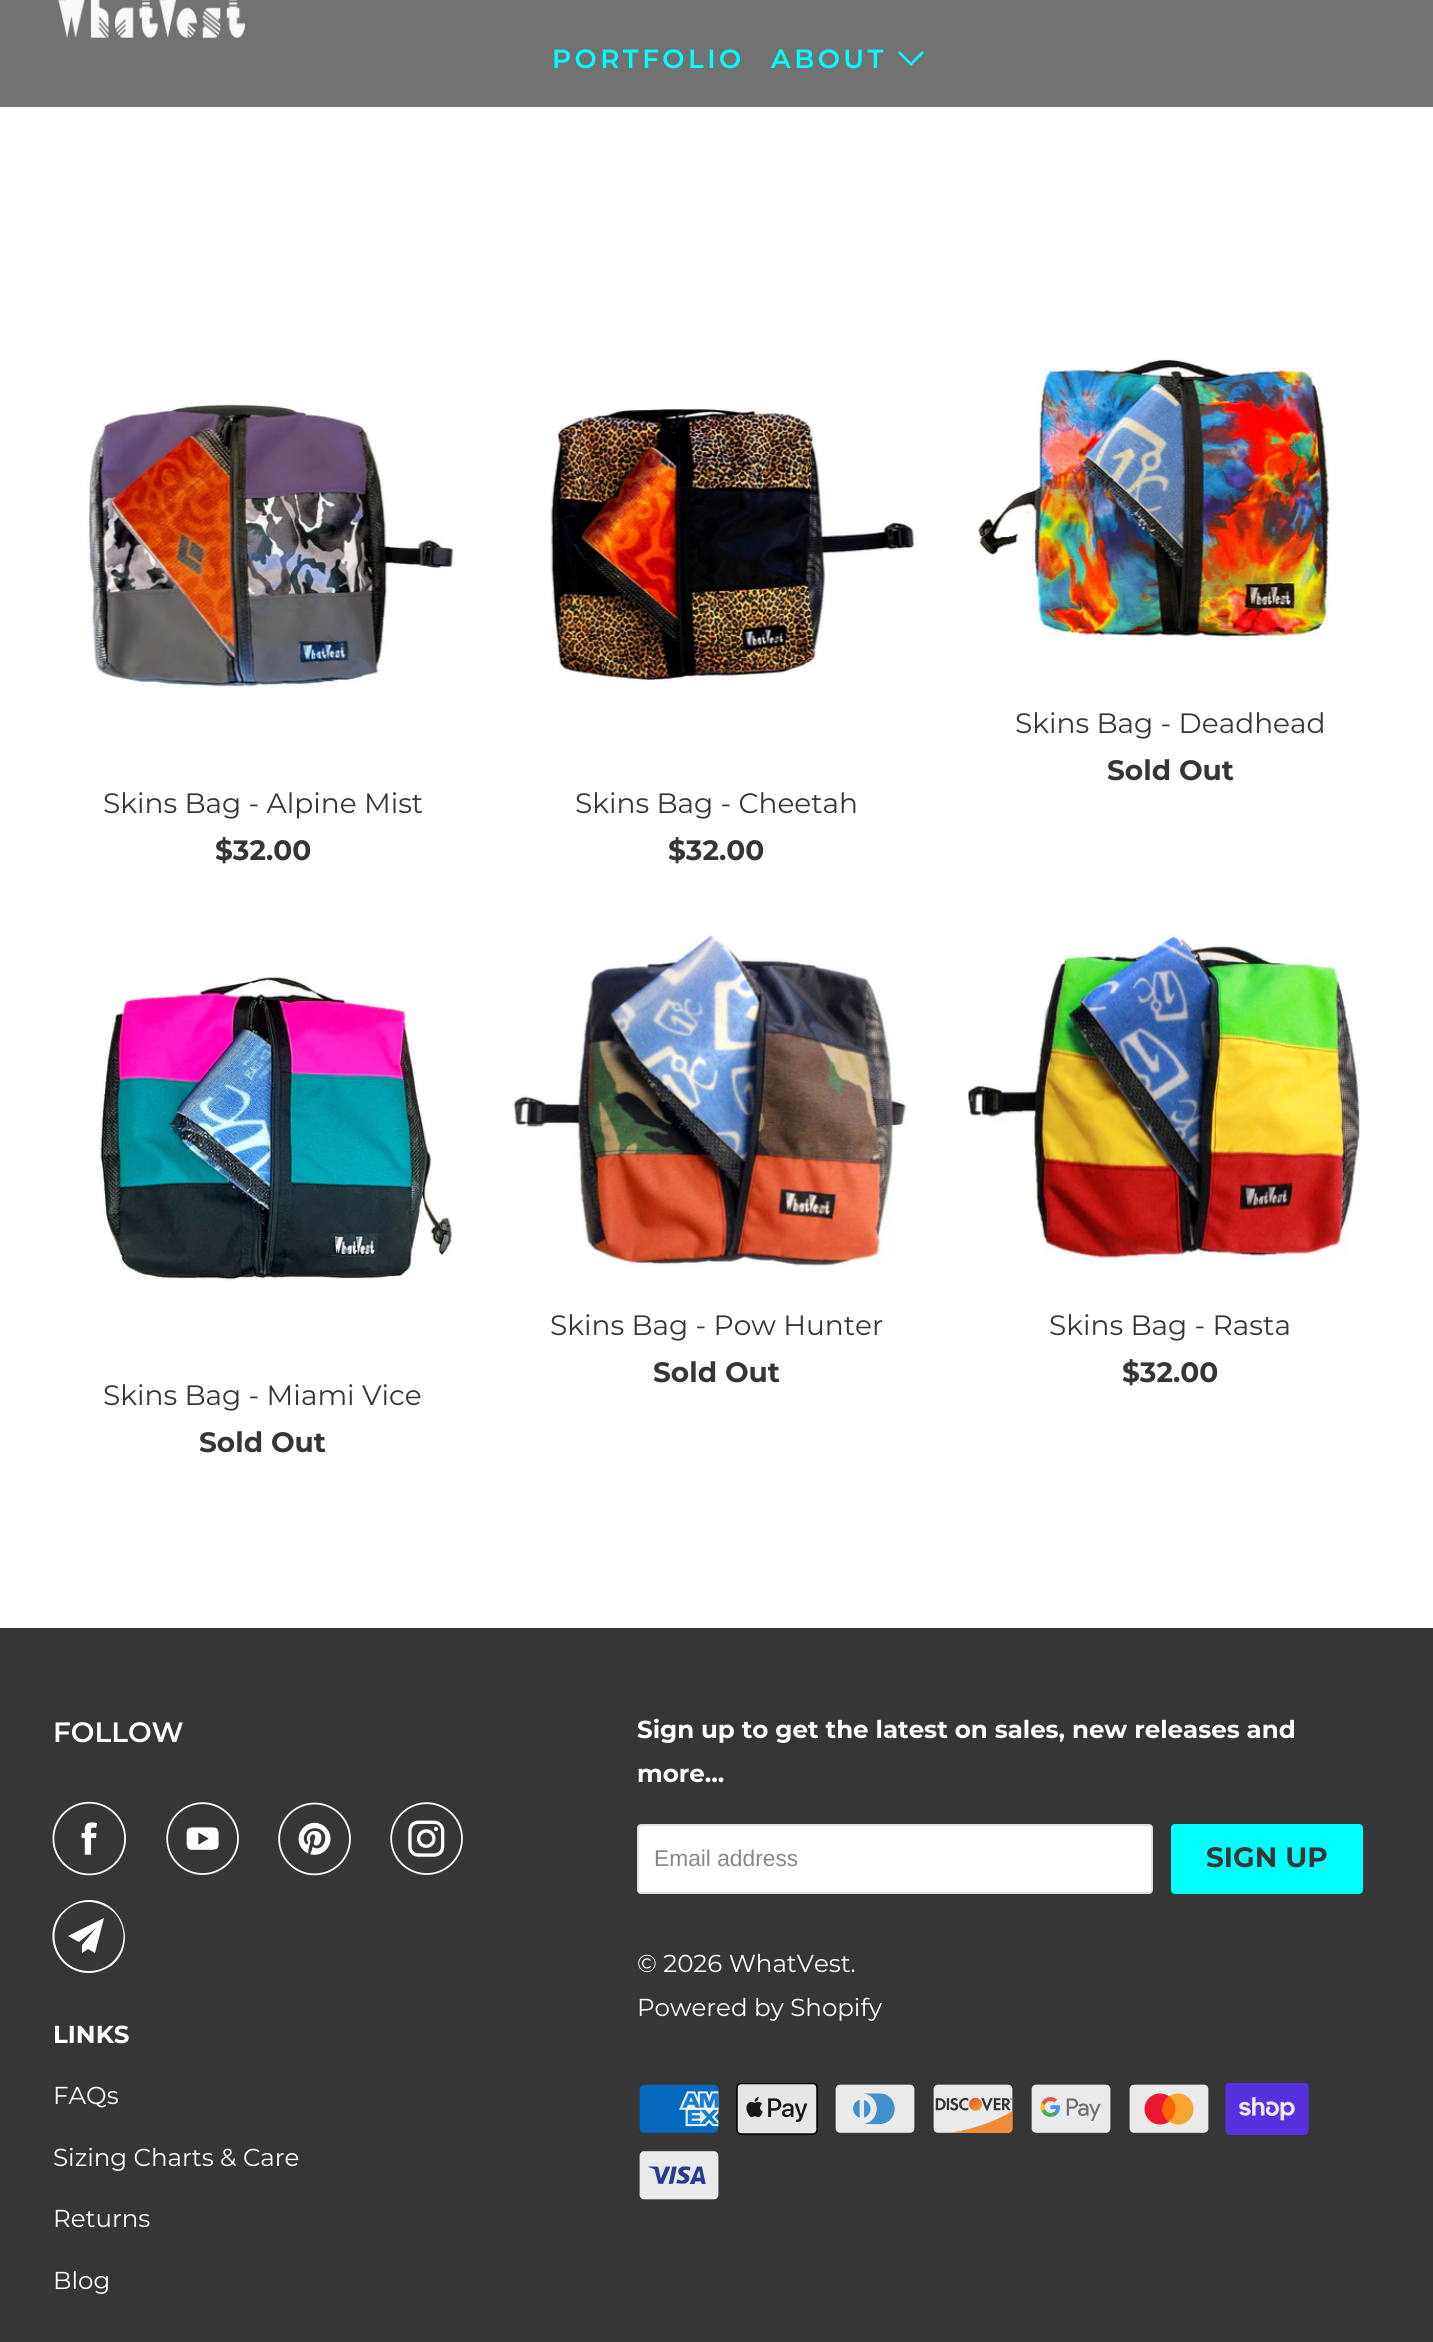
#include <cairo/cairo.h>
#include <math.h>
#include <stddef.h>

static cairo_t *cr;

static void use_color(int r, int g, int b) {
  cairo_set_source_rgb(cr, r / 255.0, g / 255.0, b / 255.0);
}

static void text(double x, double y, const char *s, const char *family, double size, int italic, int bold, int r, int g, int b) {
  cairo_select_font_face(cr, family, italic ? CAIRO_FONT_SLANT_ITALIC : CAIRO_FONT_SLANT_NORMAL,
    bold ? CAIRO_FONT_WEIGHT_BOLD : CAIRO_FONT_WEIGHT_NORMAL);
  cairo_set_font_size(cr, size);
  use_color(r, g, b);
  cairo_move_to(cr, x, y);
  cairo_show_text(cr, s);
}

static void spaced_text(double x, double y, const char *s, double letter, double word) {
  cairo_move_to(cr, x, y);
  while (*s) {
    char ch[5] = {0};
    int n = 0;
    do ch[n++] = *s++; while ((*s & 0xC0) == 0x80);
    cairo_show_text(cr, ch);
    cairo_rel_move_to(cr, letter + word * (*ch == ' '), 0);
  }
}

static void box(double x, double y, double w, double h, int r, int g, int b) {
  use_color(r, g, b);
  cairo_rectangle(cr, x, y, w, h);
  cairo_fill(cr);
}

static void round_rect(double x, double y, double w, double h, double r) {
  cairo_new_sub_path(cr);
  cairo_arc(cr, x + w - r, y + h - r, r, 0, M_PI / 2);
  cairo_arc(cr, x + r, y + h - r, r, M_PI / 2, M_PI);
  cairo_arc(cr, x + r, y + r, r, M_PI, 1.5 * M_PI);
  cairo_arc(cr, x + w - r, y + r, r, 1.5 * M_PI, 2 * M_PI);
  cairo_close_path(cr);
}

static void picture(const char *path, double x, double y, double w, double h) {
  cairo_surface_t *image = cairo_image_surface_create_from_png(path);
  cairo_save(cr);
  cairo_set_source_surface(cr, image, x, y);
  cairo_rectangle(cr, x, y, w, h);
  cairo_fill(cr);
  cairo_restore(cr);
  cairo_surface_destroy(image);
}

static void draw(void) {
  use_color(255, 255, 255);
  cairo_paint(cr);
  box(0, 0, 1433, 107, 114, 114, 114);
  picture("img_01.png", 58, 0, 187, 38);
  use_color(0, 255, 255);
  cairo_new_path(cr);
  cairo_move_to(cr, 904.5, 59.5);
  cairo_line_to(cr, 898, 53);
  cairo_line_to(cr, 899.5, 51);
  cairo_line_to(cr, 911, 62.5);
  cairo_line_to(cr, 922, 51);
  cairo_line_to(cr, 924, 53);
  cairo_line_to(cr, 911, 66);
  cairo_close_path(cr);
  cairo_fill(cr);
  picture("img_02.png", 977, 359, 354, 278);
  picture("img_03.png", 86, 404, 369, 285);
  picture("img_04.png", 550, 409, 367, 276);
  picture("img_05.png", 513, 934, 395, 333);
  picture("img_06.png", 967, 933, 393, 329);
  picture("img_07.png", 99, 976, 353, 305);
  box(0, 1628, 1433, 714, 54, 54, 54);
  picture("img_08.png", 52, 1801, 74, 75);
  picture("img_09.png", 166, 1802, 73, 73);
  picture("img_10.png", 278, 1802, 73, 74);
  picture("img_11.png", 390, 1802, 73, 73);
  use_color(255, 255, 255);
  cairo_new_path(cr);
  cairo_move_to(cr, 95, 1953);
  cairo_line_to(cr, 88, 1949);
  cairo_line_to(cr, 82, 1953);
  cairo_line_to(cr, 82, 1945);
  cairo_line_to(cr, 96, 1928);
  cairo_line_to(cr, 79, 1942);
  cairo_line_to(cr, 68, 1936);
  cairo_line_to(cr, 104, 1918);
  cairo_close_path(cr);
  cairo_move_to(cr, 89, 1902);
  cairo_curve_to(cr, 81, 1902, 74, 1904, 68, 1909);
  cairo_curve_to(cr, 42, 1929, 56, 1971, 89, 1971);
  cairo_curve_to(cr, 122, 1971, 136, 1929, 110, 1909);
  cairo_curve_to(cr, 104, 1905, 96, 1902, 89, 1902);
  cairo_close_path(cr);
  cairo_move_to(cr, 89, 1973);
  cairo_curve_to(cr, 54, 1973, 39, 1928, 67, 1908);
  cairo_curve_to(cr, 73, 1903, 81, 1900, 89, 1900);
  cairo_curve_to(cr, 123, 1900, 138, 1945, 111, 1966);
  cairo_curve_to(cr, 104, 1970, 97, 1973, 89, 1973);
  cairo_close_path(cr);
  cairo_fill(cr);
  round_rect(638, 1825, 514, 68, 3);
  cairo_fill_preserve(cr);
  use_color(223, 223, 223);
  cairo_stroke(cr);
  use_color(0, 255, 255);
  round_rect(1171, 1824, 192, 70, 4);
  cairo_fill(cr);
  picture("img_12.png", 639, 2084, 80, 49);
  picture("img_13.png", 736, 2083, 82, 52);
  picture("img_14.png", 835, 2084, 80, 49);
  picture("img_15.png", 933, 2084, 80, 49);
  picture("img_16.png", 1031, 2084, 80, 49);
  picture("img_17.png", 1129, 2084, 80, 49);
  picture("img_18.png", 1225, 2083, 84, 52);
  picture("img_19.png", 639, 2151, 80, 49);
  cairo_select_font_face(cr, "Montserrat SemiBold", CAIRO_FONT_SLANT_NORMAL, CAIRO_FONT_WEIGHT_NORMAL);
  cairo_set_font_size(cr, 26.25);
  spaced_text(552, 68, "PORTFOLIO", 3.5, 0);
  spaced_text(771, 68, "ABOUT", 3.5, 0);
  text(1015, 733, "Skins Bag - Deadhead", "Montserrat", 28, 0, 0, 54, 54, 54);
  text(1107, 780, "Sold Out", "Montserrat", 28, 0, 1, 54, 54, 54);
  text(103, 813, "Skins Bag - Alpine Mist", "Montserrat", 28, 0, 0, 54, 54, 54);
  text(215, 860, "$32.00", "Montserrat", 28, 0, 1, 54, 54, 54);
  text(575, 813, "Skins Bag - Cheetah", "Montserrat", 28, 0, 0, 54, 54, 54);
  text(668, 860, "$32.00", "Montserrat", 28, 0, 1, 54, 54, 54);
  text(550, 1335, "Skins Bag - Pow Hunter", "Montserrat", 28, 0, 0, 54, 54, 54);
  text(653, 1382, "Sold Out", "Montserrat", 28, 0, 1, 54, 54, 54);
  text(1049, 1335, "Skins Bag - Rasta", "Montserrat", 28, 0, 0, 54, 54, 54);
  text(1122, 1382, "$32.00", "Montserrat", 28, 0, 1, 54, 54, 54);
  text(103, 1405, "Skins Bag - Miami Vice", "Montserrat", 28, 0, 0, 54, 54, 54);
  text(199, 1452, "Sold Out", "Montserrat", 28, 0, 1, 54, 54, 54);
  text(53, 1742, "FOLLOW", "Montserrat SemiBold", 28, 0, 0, 255, 255, 255);
  text(53, 2043, "LINKS", "Montserrat", 24.5, 0, 1, 255, 255, 255);
  text(53, 2104, "FAQs", "Montserrat", 24.5, 0, 0, 255, 255, 255);
  text(53, 2166, "Sizing Charts & Care", "Montserrat", 24.5, 0, 0, 255, 255, 255);
  text(53, 2227, "Returns", "Montserrat", 24.5, 0, 0, 255, 255, 255);
  text(53, 2289, "Blog", "Montserrat", 24.5, 0, 0, 255, 255, 255);
  text(637, 1738, "Sign up to get the latest on sales, new releases and", "Montserrat", 24.5, 0, 1, 255, 255, 255);
  text(637, 1782, "more…", "Montserrat", 24.5, 0, 1, 255, 255, 255);
  text(654, 1866, "Email address", "Liberation Sans", 22.75, 0, 0, 136, 136, 136);
  text(1206, 1867, "SIGN UP", "Montserrat", 28, 0, 1, 54, 54, 54);
  text(637, 1972, "© 2026 WhatVest.", "Montserrat", 24.5, 0, 0, 255, 255, 255);
  text(637, 2016, "Powered by Shopify", "Montserrat", 24.5, 0, 0, 255, 255, 255);
}

int main(void) {
  cairo_surface_t *surface = cairo_image_surface_create(CAIRO_FORMAT_RGB24, 1433, 2342);
  cr = cairo_create(surface);
  cairo_font_options_t *options = cairo_font_options_create();
  cairo_font_options_set_hint_metrics(options, CAIRO_HINT_METRICS_OFF);
  cairo_font_options_set_hint_style(options, CAIRO_HINT_STYLE_NONE);
  cairo_set_font_options(cr, options);
  cairo_set_miter_limit(cr, 4);
  draw();
  cairo_surface_write_to_png(surface, "out.png");
  cairo_font_options_destroy(options);
  cairo_destroy(cr);
  cairo_surface_destroy(surface);
  return 0;
}
